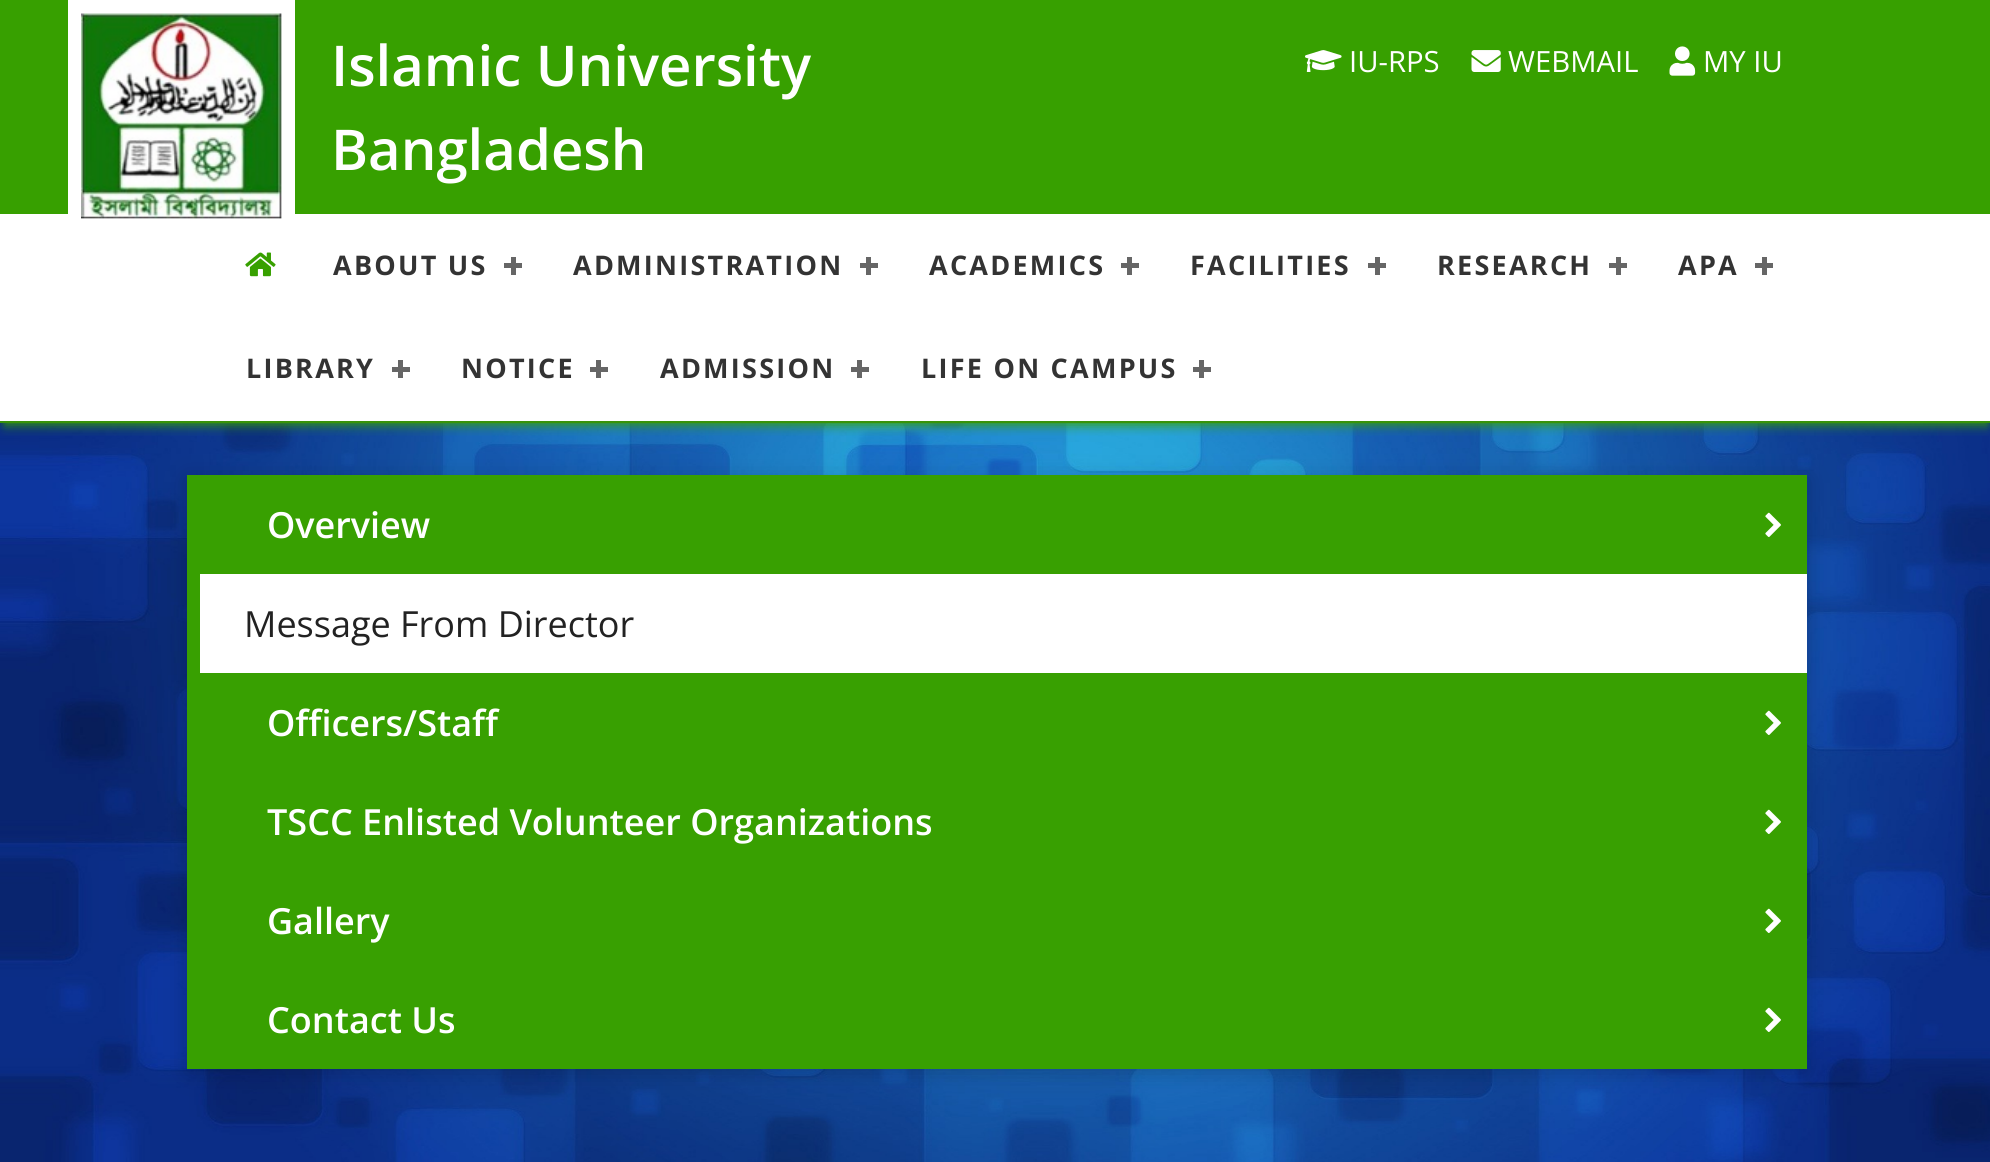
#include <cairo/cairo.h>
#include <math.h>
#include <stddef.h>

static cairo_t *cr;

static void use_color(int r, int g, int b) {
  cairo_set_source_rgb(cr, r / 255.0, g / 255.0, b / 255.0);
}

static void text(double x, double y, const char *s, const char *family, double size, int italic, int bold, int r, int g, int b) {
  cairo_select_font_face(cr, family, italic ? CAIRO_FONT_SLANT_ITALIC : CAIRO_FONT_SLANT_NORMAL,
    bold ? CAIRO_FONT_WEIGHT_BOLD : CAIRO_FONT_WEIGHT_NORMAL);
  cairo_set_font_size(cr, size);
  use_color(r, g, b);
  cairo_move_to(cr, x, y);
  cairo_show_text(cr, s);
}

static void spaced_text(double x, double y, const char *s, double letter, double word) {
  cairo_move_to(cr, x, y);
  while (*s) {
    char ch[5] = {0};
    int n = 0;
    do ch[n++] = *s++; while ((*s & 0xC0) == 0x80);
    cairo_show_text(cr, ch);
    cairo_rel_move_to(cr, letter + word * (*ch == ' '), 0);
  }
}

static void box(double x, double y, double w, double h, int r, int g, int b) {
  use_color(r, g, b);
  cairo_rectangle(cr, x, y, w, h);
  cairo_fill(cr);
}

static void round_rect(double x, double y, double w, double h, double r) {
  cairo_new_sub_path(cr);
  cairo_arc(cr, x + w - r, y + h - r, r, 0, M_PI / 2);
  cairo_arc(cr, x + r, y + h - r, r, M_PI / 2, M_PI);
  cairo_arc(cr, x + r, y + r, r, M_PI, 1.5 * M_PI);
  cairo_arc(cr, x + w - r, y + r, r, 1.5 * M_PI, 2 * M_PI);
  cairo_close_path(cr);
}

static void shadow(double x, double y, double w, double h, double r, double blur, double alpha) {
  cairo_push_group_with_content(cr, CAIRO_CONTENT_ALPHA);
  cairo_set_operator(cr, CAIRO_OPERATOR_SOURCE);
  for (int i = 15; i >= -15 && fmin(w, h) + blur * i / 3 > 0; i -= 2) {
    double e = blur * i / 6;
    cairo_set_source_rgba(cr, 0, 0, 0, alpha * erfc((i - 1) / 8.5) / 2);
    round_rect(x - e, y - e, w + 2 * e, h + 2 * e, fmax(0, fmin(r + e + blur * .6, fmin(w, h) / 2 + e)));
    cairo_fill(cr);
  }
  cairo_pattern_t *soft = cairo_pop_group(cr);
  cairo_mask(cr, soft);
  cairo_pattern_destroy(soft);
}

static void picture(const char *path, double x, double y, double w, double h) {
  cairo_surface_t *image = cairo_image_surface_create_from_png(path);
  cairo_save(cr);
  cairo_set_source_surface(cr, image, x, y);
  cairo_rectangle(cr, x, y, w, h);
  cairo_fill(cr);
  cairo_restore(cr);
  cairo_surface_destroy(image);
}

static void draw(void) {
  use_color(255, 255, 255);
  cairo_paint(cr);
  box(0, 0, 1990, 214, 55, 160, 0);
  picture("img_06.png", 0, 423, 1990, 739);
  cairo_save(cr);
  cairo_rectangle(cr, 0, 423, 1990, 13);
  cairo_clip(cr);
  use_color(55, 160, 0);
  shadow(5, 225, 1982, 200, 0, 5.5, 1);
  cairo_restore(cr);
  box(68, 0, 227, 214, 255, 255, 255);
  picture("img_01.png", 81, 13, 201, 206);
  picture("img_02.png", 1305, 50, 37, 22);
  picture("img_03.png", 1471, 50, 30, 22);
  picture("img_04.png", 1669, 46, 27, 30);
  box(0, 421, 1990, 2, 56, 147, 9);
  picture("img_05.png", 245, 252, 31, 25);
  box(511, 257, 5, 18, 102, 102, 102);
  box(504, 263, 18, 5, 102, 102, 102);
  box(866, 257, 5, 18, 102, 102, 102);
  box(860, 263, 18, 5, 102, 102, 102);
  box(1127, 257, 5, 18, 102, 102, 102);
  box(1121, 263, 18, 5, 102, 102, 102);
  box(1375, 257, 5, 18, 102, 102, 102);
  box(1368, 263, 18, 5, 102, 102, 102);
  box(1616, 257, 5, 18, 102, 102, 102);
  box(1609, 263, 18, 5, 102, 102, 102);
  box(1762, 257, 5, 18, 102, 102, 102);
  box(1755, 263, 18, 5, 102, 102, 102);
  box(398, 360, 5, 18, 102, 102, 102);
  box(392, 367, 18, 5, 102, 102, 102);
  box(596, 360, 5, 18, 102, 102, 102);
  box(590, 367, 18, 5, 102, 102, 102);
  box(857, 360, 5, 18, 102, 102, 102);
  box(851, 367, 18, 5, 102, 102, 102);
  box(1199, 360, 5, 18, 102, 102, 102);
  box(1193, 367, 18, 5, 102, 102, 102);
  use_color(0, 0, 0);
  shadow(187, 479, 1620, 594, 0, 11, 0.2);
  box(200, 574, 1607, 99, 255, 255, 255);
  box(187, 475, 1620, 99, 56, 160, 1);
  picture("img_07.png", 1765, 512, 16, 25);
  box(187, 574, 13, 99, 56, 160, 1);
  box(187, 673, 1620, 396, 56, 160, 1);
  picture("img_07.png", 1765, 710, 16, 25);
  picture("img_07.png", 1765, 809, 16, 25);
  picture("img_07.png", 1765, 908, 16, 25);
  picture("img_07.png", 1765, 1007, 16, 25);
  text(331, 86, "Islamic University", "Open Sans SemiBold", 56.25, 0, 0, 255, 255, 255);
  text(331, 170, "Bangladesh", "Open Sans SemiBold", 56.25, 0, 0, 255, 255, 255);
  text(1349, 72, "IU-RPS", "Open Sans", 29.25, 0, 0, 255, 255, 255);
  text(1508, 72, "WEBMAIL", "Open Sans", 29.25, 0, 0, 255, 255, 255);
  text(1703, 72, "MY IU", "Open Sans", 29.25, 0, 0, 255, 255, 255);
  cairo_select_font_face(cr, "Open Sans", CAIRO_FONT_SLANT_NORMAL, CAIRO_FONT_WEIGHT_BOLD);
  cairo_set_font_size(cr, 27);
  use_color(51, 51, 51);
  spaced_text(333, 275, "ABOUT US", 2.25, 0);
  spaced_text(573, 275, "ADMINISTRATION", 2.25, 0);
  spaced_text(929, 275, "ACADEMICS", 2.25, 0);
  spaced_text(1190, 275, "FACILITIES", 2.25, 0);
  spaced_text(1437, 275, "RESEARCH", 2.25, 0);
  spaced_text(1678, 275, "APA", 2.25, 0);
  spaced_text(246, 378, "LIBRARY", 2.25, 0);
  spaced_text(461, 378, "NOTICE", 2.25, 0);
  spaced_text(660, 378, "ADMISSION", 2.25, 0);
  spaced_text(921, 378, "LIFE ON CAMPUS", 2.25, 0);
  text(267, 538, "Overview", "Open Sans SemiBold", 36, 0, 0, 255, 255, 255);
  text(244, 637, "Message From Director", "Open Sans", 36, 0, 0, 34, 34, 34);
  text(267, 736, "Officers/Staff", "Open Sans SemiBold", 36, 0, 0, 255, 255, 255);
  text(267, 835, "TSCC Enlisted Volunteer Organizations", "Open Sans SemiBold", 36, 0, 0, 255, 255, 255);
  text(267, 934, "Gallery", "Open Sans SemiBold", 36, 0, 0, 255, 255, 255);
  text(267, 1033, "Contact Us", "Open Sans SemiBold", 36, 0, 0, 255, 255, 255);
}

int main(void) {
  cairo_surface_t *surface = cairo_image_surface_create(CAIRO_FORMAT_RGB24, 1990, 1162);
  cr = cairo_create(surface);
  cairo_font_options_t *options = cairo_font_options_create();
  cairo_font_options_set_hint_metrics(options, CAIRO_HINT_METRICS_OFF);
  cairo_font_options_set_hint_style(options, CAIRO_HINT_STYLE_NONE);
  cairo_set_font_options(cr, options);
  cairo_set_miter_limit(cr, 4);
  draw();
  cairo_surface_write_to_png(surface, "out.png");
  cairo_font_options_destroy(options);
  cairo_destroy(cr);
  cairo_surface_destroy(surface);
  return 0;
}
